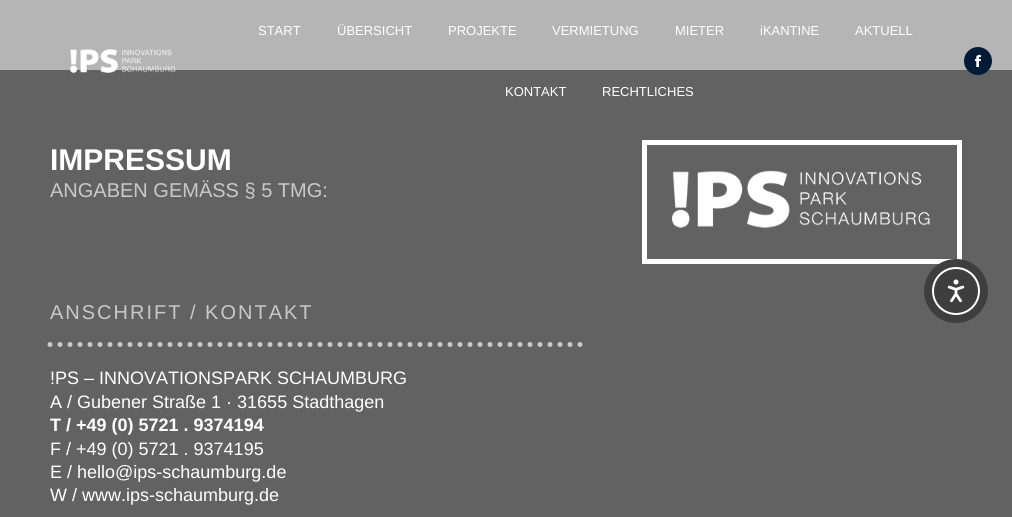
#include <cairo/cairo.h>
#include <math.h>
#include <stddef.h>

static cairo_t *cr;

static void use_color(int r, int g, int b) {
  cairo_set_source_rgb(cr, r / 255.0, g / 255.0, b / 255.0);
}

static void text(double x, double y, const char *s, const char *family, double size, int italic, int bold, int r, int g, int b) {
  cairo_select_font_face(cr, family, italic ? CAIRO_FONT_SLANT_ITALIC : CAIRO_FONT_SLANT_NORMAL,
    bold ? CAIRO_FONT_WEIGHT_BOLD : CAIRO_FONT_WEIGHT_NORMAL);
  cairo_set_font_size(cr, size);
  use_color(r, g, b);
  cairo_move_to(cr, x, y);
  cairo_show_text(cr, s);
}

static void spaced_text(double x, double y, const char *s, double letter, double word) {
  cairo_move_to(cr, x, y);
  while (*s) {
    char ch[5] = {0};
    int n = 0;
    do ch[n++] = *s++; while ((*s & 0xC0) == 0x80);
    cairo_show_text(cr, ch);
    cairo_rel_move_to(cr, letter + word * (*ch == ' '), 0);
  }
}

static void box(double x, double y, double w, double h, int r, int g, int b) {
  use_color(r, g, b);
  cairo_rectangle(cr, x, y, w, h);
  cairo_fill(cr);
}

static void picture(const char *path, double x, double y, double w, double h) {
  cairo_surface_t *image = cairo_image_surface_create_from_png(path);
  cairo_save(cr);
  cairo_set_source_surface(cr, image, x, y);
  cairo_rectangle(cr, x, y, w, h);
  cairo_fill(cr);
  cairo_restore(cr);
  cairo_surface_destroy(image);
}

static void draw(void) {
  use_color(181, 181, 181);
  cairo_paint(cr);
  box(0, 70, 1012, 447, 98, 98, 98);
  picture("img_01.png", 70, 49, 106, 24);
  use_color(0, 27, 55);
  cairo_arc(cr, 978, 61, 13, 0, 2 * M_PI);
  cairo_fill_preserve(cr);
  cairo_stroke(cr);
  picture("img_02.png", 975, 55, 6, 12);
  cairo_new_path(cr);
  cairo_move_to(cr, 50, 344.5);
  cairo_line_to(cr, 582, 344.5);
  use_color(201, 201, 201);
  cairo_set_line_width(cr, 5);
  cairo_set_line_cap(cr, CAIRO_LINE_CAP_ROUND);
  cairo_set_dash(cr, (double[]){0, 10}, 2, 0);
  cairo_stroke(cr);
  cairo_rectangle(cr, 644.5, 142.5, 315, 119);
  use_color(255, 255, 255);
  cairo_set_line_cap(cr, CAIRO_LINE_CAP_BUTT);
  cairo_set_dash(cr, NULL, 0, 0);
  cairo_stroke(cr);
  picture("img_03.png", 672, 170, 258, 58);
  use_color(62, 62, 62);
  cairo_arc(cr, 956, 291, 32, 0, 2 * M_PI);
  cairo_fill(cr);
  cairo_arc(cr, 956, 291, 23, 0, 2 * M_PI);
  use_color(255, 255, 255);
  cairo_set_line_width(cr, 2);
  cairo_stroke(cr);
  picture("img_04.png", 947, 279, 18, 24);
  text(258, 35, "START", "Liberation Sans", 13, 0, 0, 255, 255, 255);
  text(337, 35, "ÜBERSICHT", "Liberation Sans", 13, 0, 0, 255, 255, 255);
  text(448, 35, "PROJEKTE", "Liberation Sans", 13, 0, 0, 255, 255, 255);
  text(552, 35, "VERMIETUNG", "Liberation Sans", 13, 0, 0, 255, 255, 255);
  text(675, 35, "MIETER", "Liberation Sans", 13, 0, 0, 255, 255, 255);
  text(760, 35, "iKANTINE", "Liberation Sans", 13, 0, 0, 255, 255, 255);
  text(855, 35, "AKTUELL", "Liberation Sans", 13, 0, 0, 255, 255, 255);
  text(505, 96, "KONTAKT", "Liberation Sans", 13, 0, 0, 255, 255, 255);
  text(602, 96, "RECHTLICHES", "Liberation Sans", 13, 0, 0, 255, 255, 255);
  text(50, 170, "IMPRESSUM", "Liberation Sans", 30, 0, 1, 255, 255, 255);
  text(50, 197, "ANGABEN GEMÄSS § 5 TMG:", "Liberation Sans", 20, 0, 0, 201, 201, 201);
  spaced_text(50, 319, "ANSCHRIFT / KONTAKT", 2, 0);
  text(50, 384, "!PS – INNOVATIONSPARK SCHAUMBURG", "Liberation Sans", 18, 0, 0, 255, 255, 255);
  text(50, 408, "A / Gubener Straße 1 · 31655 Stadthagen", "Liberation Sans", 18, 0, 0, 255, 255, 255);
  text(50, 431, "T / +49 (0) 5721 . 9374194", "Liberation Sans", 18, 0, 1, 255, 255, 255);
  text(50, 455, "F / +49 (0) 5721 . 9374195", "Liberation Sans", 18, 0, 0, 255, 255, 255);
  text(50, 478, "E / hello@ips-schaumburg.de", "Liberation Sans", 18, 0, 0, 255, 255, 255);
  text(50, 501, "W / www.ips-schaumburg.de", "Liberation Sans", 18, 0, 0, 255, 255, 255);
}

int main(void) {
  cairo_surface_t *surface = cairo_image_surface_create(CAIRO_FORMAT_RGB24, 1012, 517);
  cr = cairo_create(surface);
  cairo_font_options_t *options = cairo_font_options_create();
  cairo_font_options_set_hint_metrics(options, CAIRO_HINT_METRICS_OFF);
  cairo_font_options_set_hint_style(options, CAIRO_HINT_STYLE_NONE);
  cairo_set_font_options(cr, options);
  cairo_set_miter_limit(cr, 4);
  draw();
  cairo_surface_write_to_png(surface, "out.png");
  cairo_font_options_destroy(options);
  cairo_destroy(cr);
  cairo_surface_destroy(surface);
  return 0;
}
